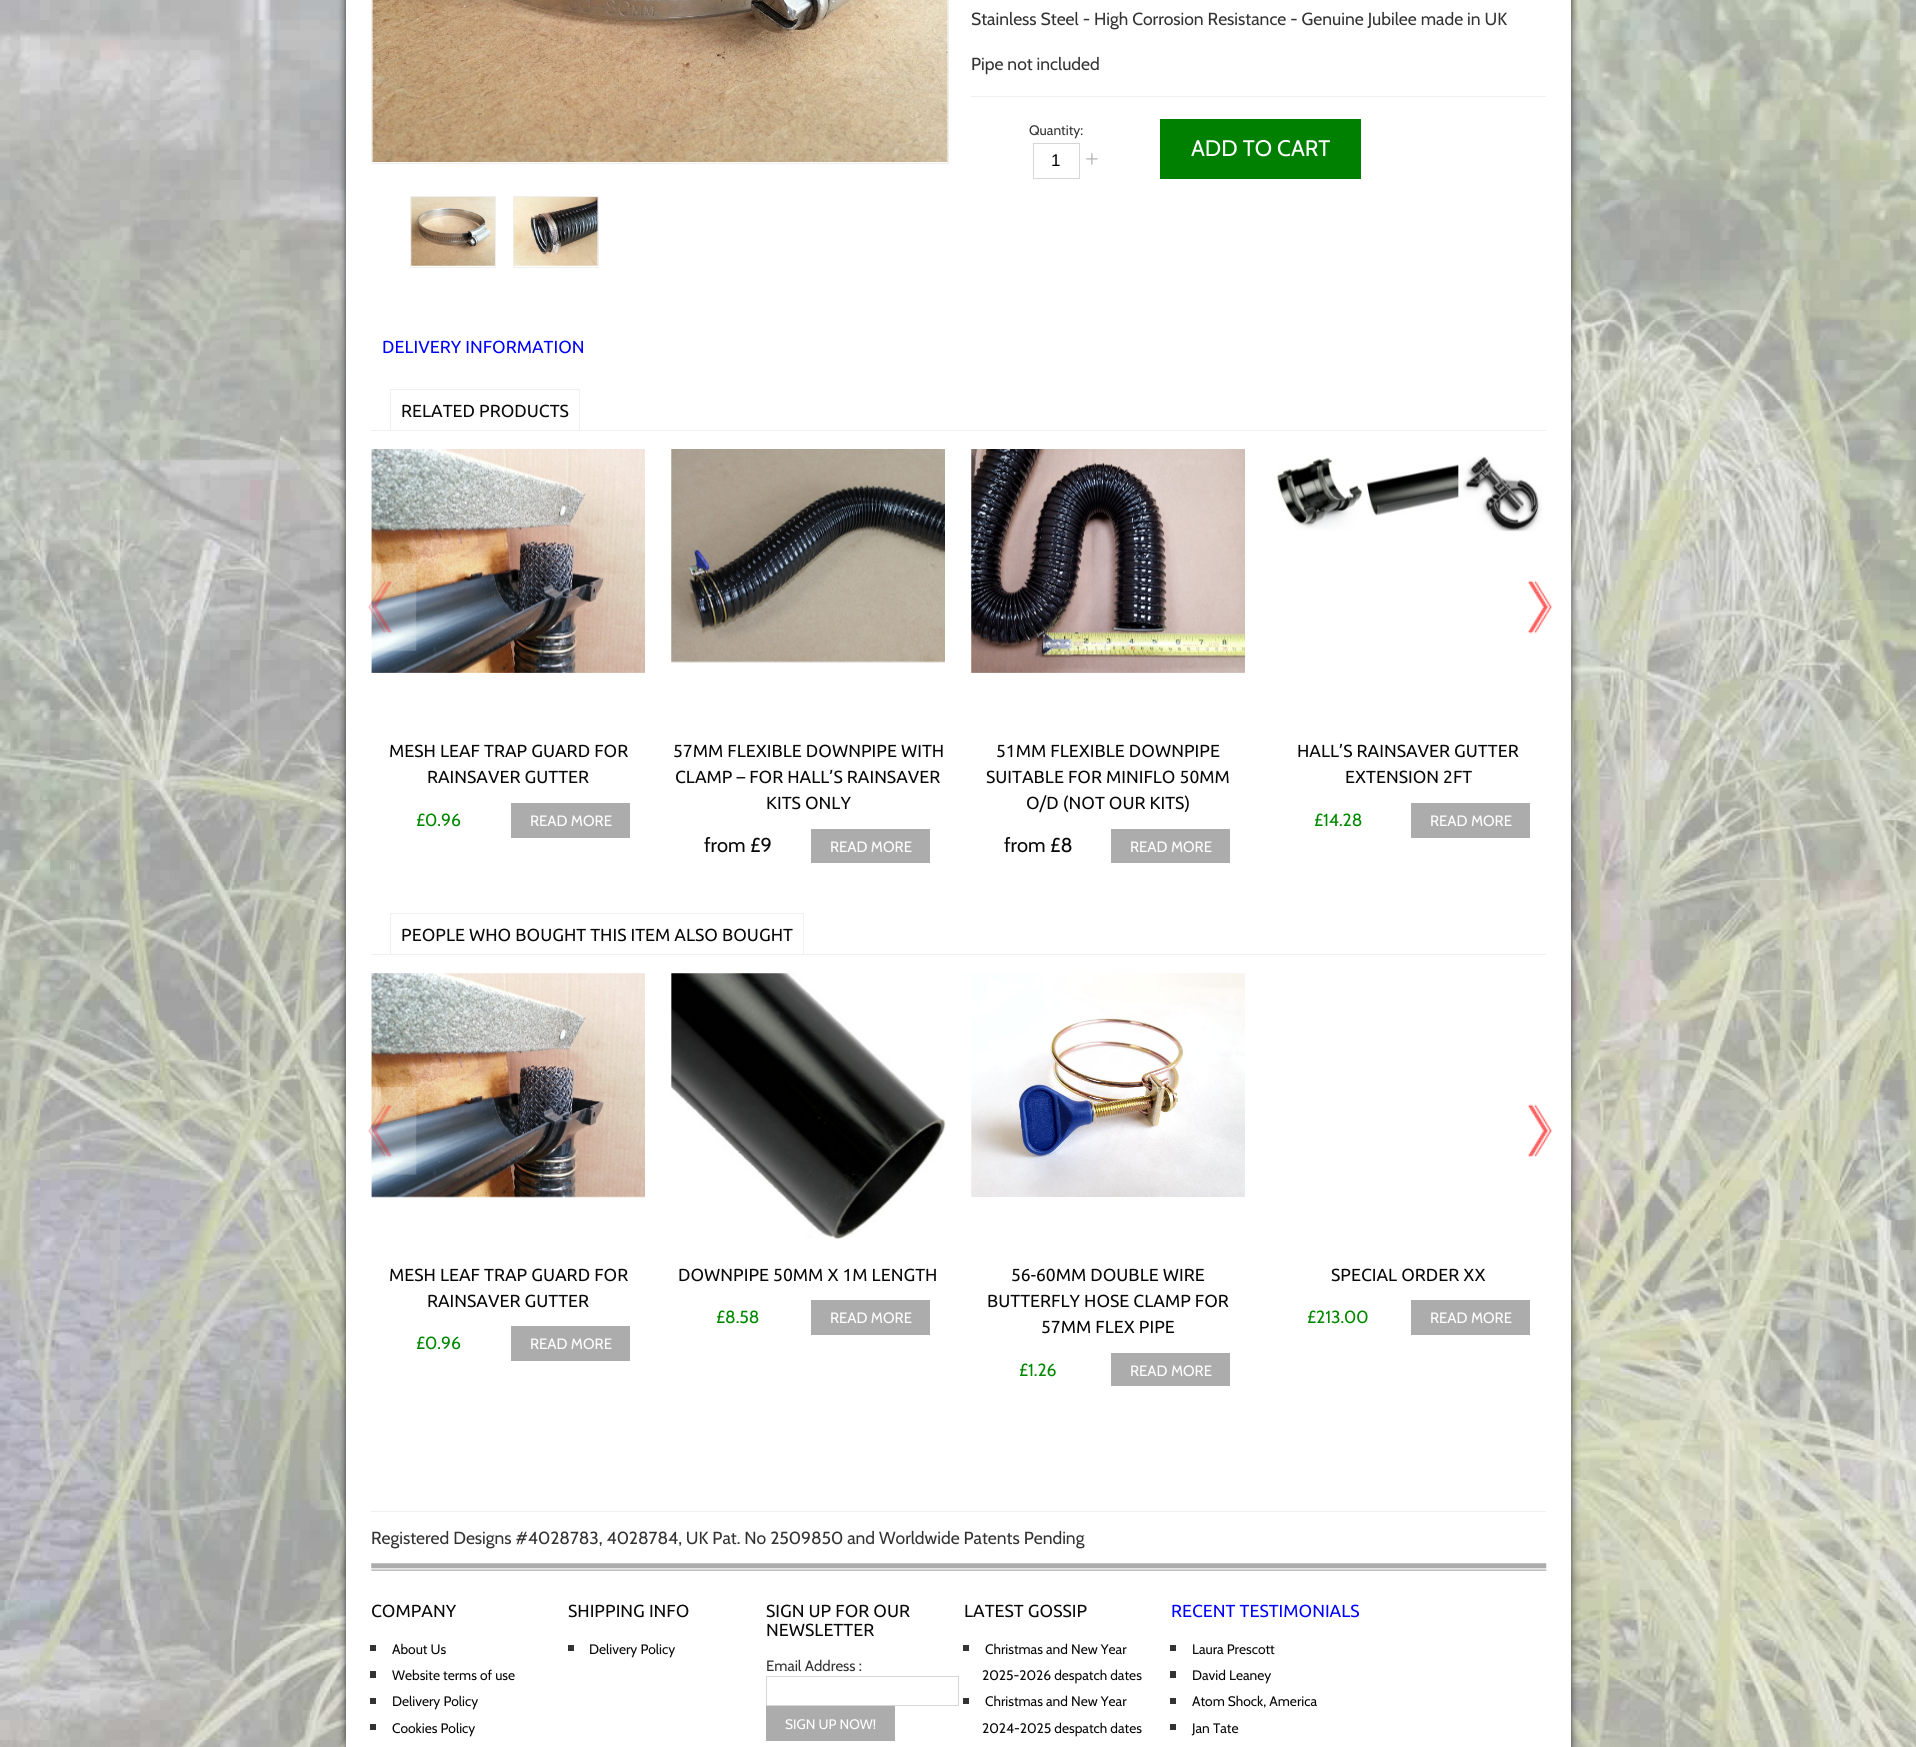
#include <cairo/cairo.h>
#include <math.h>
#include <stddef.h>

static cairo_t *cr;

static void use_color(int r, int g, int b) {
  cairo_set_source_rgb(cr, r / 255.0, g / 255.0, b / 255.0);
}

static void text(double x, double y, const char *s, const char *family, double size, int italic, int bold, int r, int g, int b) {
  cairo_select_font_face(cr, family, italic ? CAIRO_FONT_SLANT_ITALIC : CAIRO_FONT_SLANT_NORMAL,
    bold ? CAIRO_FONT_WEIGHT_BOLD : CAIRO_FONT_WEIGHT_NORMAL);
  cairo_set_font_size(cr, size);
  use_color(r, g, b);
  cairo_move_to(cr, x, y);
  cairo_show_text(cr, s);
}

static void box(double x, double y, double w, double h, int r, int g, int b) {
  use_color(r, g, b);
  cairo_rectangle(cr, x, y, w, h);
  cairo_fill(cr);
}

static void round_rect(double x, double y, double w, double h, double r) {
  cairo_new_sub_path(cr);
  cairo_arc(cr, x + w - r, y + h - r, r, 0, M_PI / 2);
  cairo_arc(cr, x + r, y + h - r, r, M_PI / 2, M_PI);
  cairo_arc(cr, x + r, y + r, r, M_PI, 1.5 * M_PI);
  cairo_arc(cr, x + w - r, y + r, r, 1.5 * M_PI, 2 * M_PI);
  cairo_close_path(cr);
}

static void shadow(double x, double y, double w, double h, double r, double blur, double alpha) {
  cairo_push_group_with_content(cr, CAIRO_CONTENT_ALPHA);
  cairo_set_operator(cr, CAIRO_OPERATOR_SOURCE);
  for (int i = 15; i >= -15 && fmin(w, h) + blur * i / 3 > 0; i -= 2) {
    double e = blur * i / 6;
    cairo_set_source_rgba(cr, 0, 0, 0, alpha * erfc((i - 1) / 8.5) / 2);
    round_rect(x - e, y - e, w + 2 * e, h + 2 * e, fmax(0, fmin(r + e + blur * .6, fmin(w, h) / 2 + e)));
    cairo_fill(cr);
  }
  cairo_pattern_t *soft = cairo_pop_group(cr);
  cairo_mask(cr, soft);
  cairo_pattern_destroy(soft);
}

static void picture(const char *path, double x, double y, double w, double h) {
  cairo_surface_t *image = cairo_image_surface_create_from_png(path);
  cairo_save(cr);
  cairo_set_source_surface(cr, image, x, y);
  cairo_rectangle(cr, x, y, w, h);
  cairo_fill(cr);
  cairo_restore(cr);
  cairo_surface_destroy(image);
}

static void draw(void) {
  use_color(255, 255, 255);
  cairo_paint(cr);
  picture("img_01.png", 0, 0, 1916, 1747);
  use_color(51, 51, 51);
  shadow(346, -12, 1225, 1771, 0, 4, 1);
  box(346, 0, 1225, 1747, 255, 255, 255);
  cairo_rectangle(cr, 371.5, -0.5, 577, 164);
  use_color(239, 239, 239);
  cairo_set_line_width(cr, 1);
  cairo_stroke(cr);
  picture("img_02.png", 372, 0, 576, 162);
  cairo_rectangle(cr, 410.5, 196.5, 85, 71);
  cairo_stroke(cr);
  picture("img_03.png", 411, 197, 84, 69);
  cairo_rectangle(cr, 513.5, 196.5, 85, 71);
  cairo_stroke(cr);
  picture("img_04.png", 513, 197, 85, 69);
  box(971, 96, 575, 1, 239, 239, 239);
  cairo_rectangle(cr, 1033.5, 143.5, 46, 35);
  use_color(216, 213, 213);
  cairo_stroke(cr);
  picture("img_05.png", 1086, 153, 12, 12);
  box(1160, 119, 201, 60, 0, 128, 0);
  box(390, 389, 190, 1, 239, 239, 239);
  box(579, 389, 1, 41, 239, 239, 239);
  box(390, 389, 1, 41, 239, 239, 239);
  picture("img_08.png", 371, 449, 274, 224);
  picture("img_06.png", 368, 563, 49, 88);
  picture("img_07.png", 1527, 563, 45, 88);
  box(371, 430, 1175, 1, 239, 239, 239);
  box(511, 803, 119, 35, 172, 172, 172);
  picture("img_09.png", 671, 449, 274, 214);
  box(811, 829, 119, 34, 172, 172, 172);
  picture("img_10.png", 971, 449, 274, 224);
  box(1111, 829, 119, 34, 172, 172, 172);
  picture("img_11.png", 1276, 456, 266, 76);
  box(1411, 803, 119, 35, 172, 172, 172);
  box(390, 913, 414, 1, 239, 239, 239);
  box(803, 913, 1, 41, 239, 239, 239);
  box(390, 913, 1, 41, 239, 239, 239);
  picture("img_14.png", 371, 973, 274, 225);
  picture("img_12.png", 368, 1087, 49, 88);
  picture("img_13.png", 1527, 1087, 45, 88);
  box(371, 954, 1175, 1, 239, 239, 239);
  box(511, 1326, 119, 35, 172, 172, 172);
  picture("img_15.png", 671, 973, 275, 266);
  box(811, 1300, 119, 35, 172, 172, 172);
  picture("img_16.png", 971, 973, 274, 224);
  box(1111, 1353, 119, 33, 172, 172, 172);
  box(1411, 1300, 119, 35, 172, 172, 172);
  box(371, 1511, 1175, 1, 239, 239, 239);
  picture("img_17.png", 371, 1563, 1176, 8);
  box(370, 1645, 6, 6, 51, 51, 51);
  box(370, 1671, 6, 7, 51, 51, 51);
  box(370, 1698, 6, 6, 51, 51, 51);
  box(370, 1724, 6, 6, 51, 51, 51);
  box(568, 1645, 6, 6, 51, 51, 51);
  cairo_rectangle(cr, 766.5, 1676.5, 192, 29);
  use_color(216, 213, 213);
  cairo_stroke(cr);
  box(766, 1706, 129, 35, 172, 172, 172);
  box(963, 1645, 6, 6, 51, 51, 51);
  box(963, 1698, 6, 6, 51, 51, 51);
  box(1170, 1645, 6, 6, 51, 51, 51);
  box(1170, 1671, 6, 7, 51, 51, 51);
  box(1170, 1698, 6, 6, 51, 51, 51);
  box(1170, 1724, 6, 6, 51, 51, 51);
  text(971, 25, "Stainless Steel - High Corrosion Resistance - Genuine Jubilee made in UK", "Cabin", 17.5, 0, 0, 51, 51, 51);
  text(971, 70, "Pipe not included", "Cabin", 17.5, 0, 0, 51, 51, 51);
  text(1029, 135, "Quantity:", "Cabin", 13.75, 0, 0, 51, 51, 51);
  text(1051, 166, "1", "Liberation Sans", 17, 0, 0, 0, 0, 0);
  text(1191, 156, "ADD TO CART", "Cabin", 22.5, 0, 0, 255, 255, 255);
  text(382, 353, "DELIVERY INFORMATION", "Ubuntu", 17.5, 0, 0, 0, 0, 255);
  text(401, 417, "RELATED PRODUCTS", "Ubuntu", 17.5, 0, 0, 9, 9, 9);
  text(389, 757, "MESH LEAF TRAP GUARD FOR", "Ubuntu", 17.5, 0, 0, 9, 9, 9);
  text(427, 783, "RAINSAVER GUTTER", "Ubuntu", 17.5, 0, 0, 9, 9, 9);
  text(416, 826, "£0.96", "Cabin", 17.5, 0, 0, 0, 136, 0);
  text(530, 826, "READ MORE", "Cabin", 15, 0, 0, 255, 255, 255);
  text(673, 757, "57MM FLEXIBLE DOWNPIPE WITH", "Ubuntu", 17.5, 0, 0, 9, 9, 9);
  text(675, 783, "CLAMP – FOR HALL’S RAINSAVER", "Ubuntu", 17.5, 0, 0, 9, 9, 9);
  text(766, 809, "KITS ONLY", "Ubuntu", 17.5, 0, 0, 9, 9, 9);
  text(704, 852, "from £9", "Cabin", 20, 0, 0, 9, 9, 9);
  text(830, 852, "READ MORE", "Cabin", 15, 0, 0, 255, 255, 255);
  text(996, 757, "51MM FLEXIBLE DOWNPIPE", "Ubuntu", 17.5, 0, 0, 9, 9, 9);
  text(986, 783, "SUITABLE FOR MINIFLO 50MM", "Ubuntu", 17.5, 0, 0, 9, 9, 9);
  text(1026, 809, "O/D (NOT OUR KITS)", "Ubuntu", 17.5, 0, 0, 9, 9, 9);
  text(1004, 852, "from £8", "Cabin", 20, 0, 0, 9, 9, 9);
  text(1130, 852, "READ MORE", "Cabin", 15, 0, 0, 255, 255, 255);
  text(1297, 757, "HALL’S RAINSAVER GUTTER", "Ubuntu", 17.5, 0, 0, 9, 9, 9);
  text(1345, 783, "EXTENSION 2FT", "Ubuntu", 17.5, 0, 0, 9, 9, 9);
  text(1314, 826, "£14.28", "Cabin", 17.5, 0, 0, 0, 136, 0);
  text(1430, 826, "READ MORE", "Cabin", 15, 0, 0, 255, 255, 255);
  text(401, 941, "PEOPLE WHO BOUGHT THIS ITEM ALSO BOUGHT", "Ubuntu", 17.5, 0, 0, 9, 9, 9);
  text(389, 1281, "MESH LEAF TRAP GUARD FOR", "Ubuntu", 17.5, 0, 0, 9, 9, 9);
  text(427, 1307, "RAINSAVER GUTTER", "Ubuntu", 17.5, 0, 0, 9, 9, 9);
  text(416, 1349, "£0.96", "Cabin", 17.5, 0, 0, 0, 136, 0);
  text(530, 1349, "READ MORE", "Cabin", 15, 0, 0, 255, 255, 255);
  text(678, 1281, "DOWNPIPE 50MM X 1M LENGTH", "Ubuntu", 17.5, 0, 0, 9, 9, 9);
  text(716, 1323, "£8.58", "Cabin", 17.5, 0, 0, 0, 136, 0);
  text(830, 1323, "READ MORE", "Cabin", 15, 0, 0, 255, 255, 255);
  text(1011, 1281, "56-60MM DOUBLE WIRE", "Ubuntu", 17.5, 0, 0, 9, 9, 9);
  text(987, 1307, "BUTTERFLY HOSE CLAMP FOR", "Ubuntu", 17.5, 0, 0, 9, 9, 9);
  text(1041, 1333, "57MM FLEX PIPE", "Ubuntu", 17.5, 0, 0, 9, 9, 9);
  text(1019, 1376, "£1.26", "Cabin", 17.5, 0, 0, 0, 136, 0);
  text(1130, 1376, "READ MORE", "Cabin", 15, 0, 0, 255, 255, 255);
  text(1331, 1281, "SPECIAL ORDER XX", "Ubuntu", 17.5, 0, 0, 9, 9, 9);
  text(1307, 1323, "£213.00", "Cabin", 17.5, 0, 0, 0, 136, 0);
  text(1430, 1323, "READ MORE", "Cabin", 15, 0, 0, 255, 255, 255);
  text(371, 1544, "Registered Designs #4028783, 4028784, UK Pat. No 2509850 and Worldwide Patents Pending", "Cabin", 17.5, 0, 0, 51, 51, 51);
  text(371, 1617, "COMPANY", "Ubuntu", 17.5, 0, 0, 9, 9, 9);
  text(392, 1654, "About Us", "Cabin", 13.75, 0, 0, 9, 9, 9);
  text(392, 1680, "Website terms of use", "Cabin", 13.75, 0, 0, 9, 9, 9);
  text(392, 1706, "Delivery Policy", "Cabin", 13.75, 0, 0, 9, 9, 9);
  text(392, 1733, "Cookies Policy", "Cabin", 13.75, 0, 0, 9, 9, 9);
  text(568, 1617, "SHIPPING INFO", "Ubuntu", 17.5, 0, 0, 9, 9, 9);
  text(589, 1654, "Delivery Policy", "Cabin", 13.75, 0, 0, 9, 9, 9);
  text(766, 1617, "SIGN UP FOR OUR", "Ubuntu", 17.5, 0, 0, 9, 9, 9);
  text(766, 1636, "NEWSLETTER", "Ubuntu", 17.5, 0, 0, 9, 9, 9);
  text(766, 1671, "Email Address :", "Cabin", 15, 0, 0, 51, 51, 51);
  text(785, 1729, "SIGN UP NOW!", "Cabin", 13.75, 0, 0, 255, 255, 255);
  text(964, 1617, "LATEST GOSSIP", "Ubuntu", 17.5, 0, 0, 9, 9, 9);
  text(985, 1654, "Christmas and New Year", "Cabin", 13.75, 0, 0, 9, 9, 9);
  text(982, 1680, "2025-2026 despatch dates", "Cabin", 13.75, 0, 0, 9, 9, 9);
  text(985, 1706, "Christmas and New Year", "Cabin", 13.75, 0, 0, 9, 9, 9);
  text(982, 1733, "2024-2025 despatch dates", "Cabin", 13.75, 0, 0, 9, 9, 9);
  text(1171, 1617, "RECENT TESTIMONIALS", "Ubuntu", 17.5, 0, 0, 0, 0, 255);
  text(1192, 1654, "Laura Prescott", "Cabin", 13.75, 0, 0, 9, 9, 9);
  text(1192, 1680, "David Leaney", "Cabin", 13.75, 0, 0, 9, 9, 9);
  text(1192, 1706, "Atom Shock, America", "Cabin", 13.75, 0, 0, 9, 9, 9);
  text(1192, 1733, "Jan Tate", "Cabin", 13.75, 0, 0, 9, 9, 9);
}

int main(void) {
  cairo_surface_t *surface = cairo_image_surface_create(CAIRO_FORMAT_RGB24, 1916, 1747);
  cr = cairo_create(surface);
  cairo_font_options_t *options = cairo_font_options_create();
  cairo_font_options_set_hint_metrics(options, CAIRO_HINT_METRICS_OFF);
  cairo_font_options_set_hint_style(options, CAIRO_HINT_STYLE_NONE);
  cairo_set_font_options(cr, options);
  cairo_set_miter_limit(cr, 4);
  draw();
  cairo_surface_write_to_png(surface, "out.png");
  cairo_font_options_destroy(options);
  cairo_destroy(cr);
  cairo_surface_destroy(surface);
  return 0;
}
